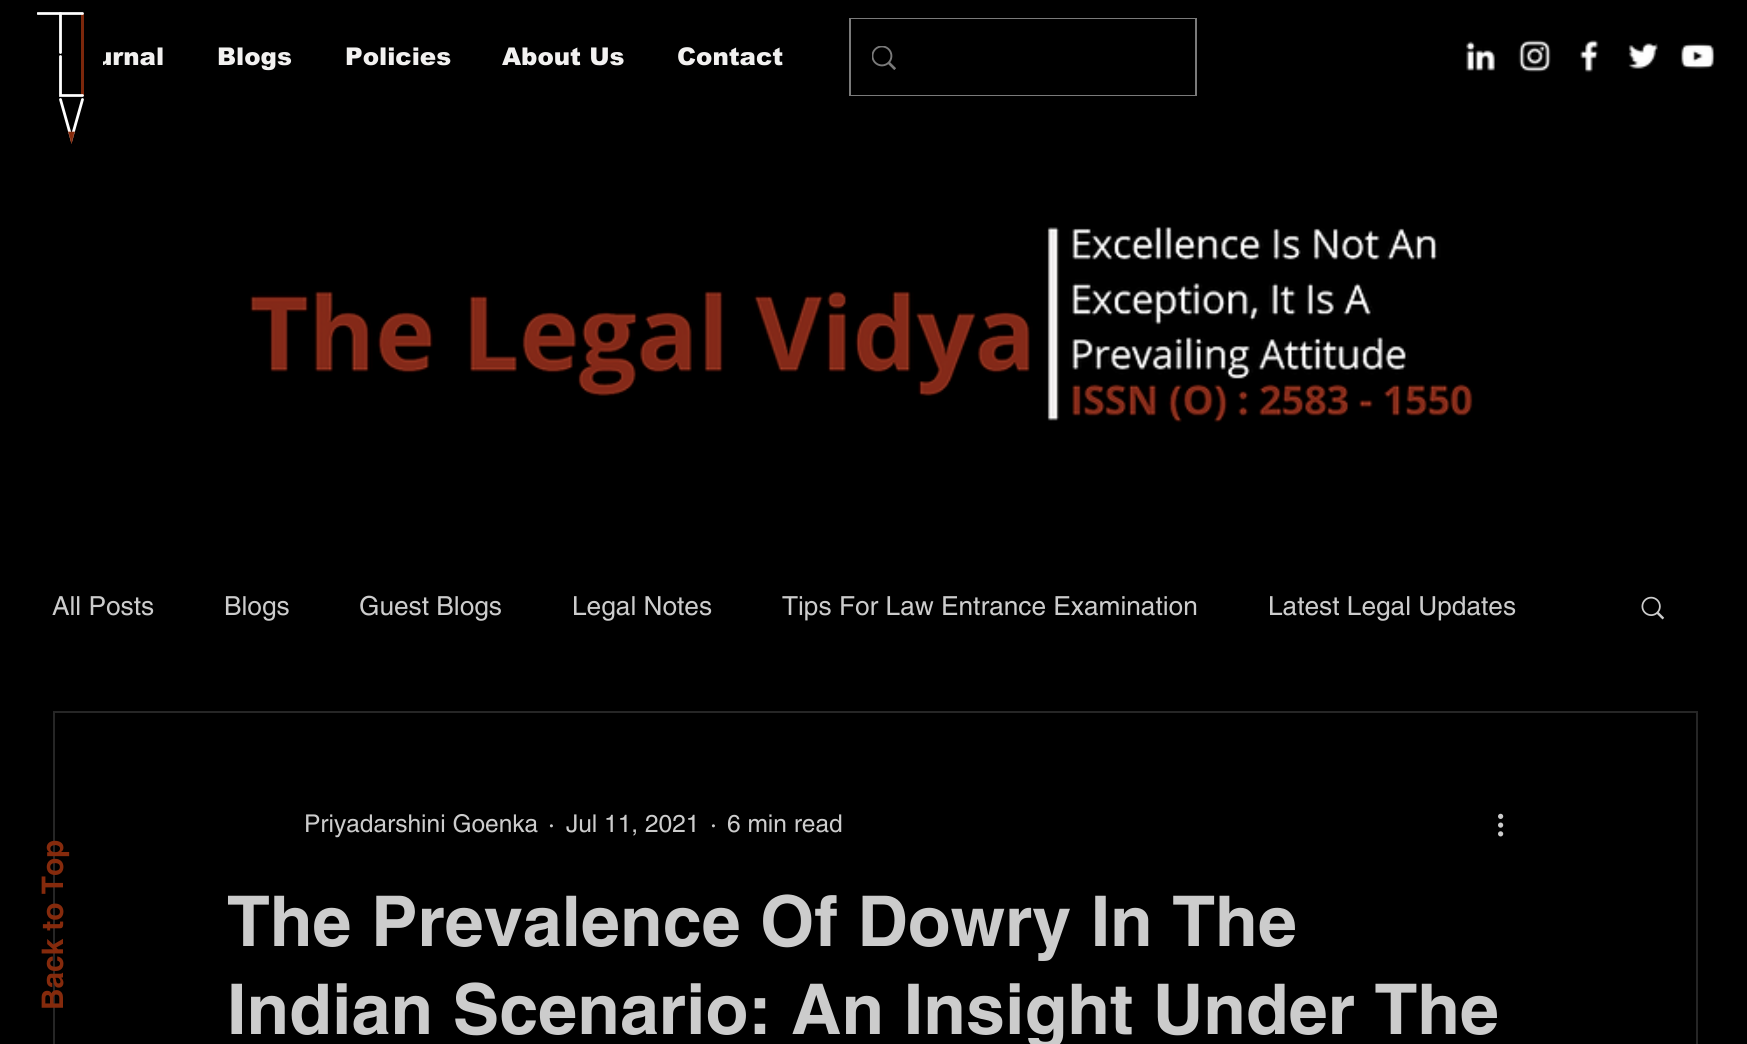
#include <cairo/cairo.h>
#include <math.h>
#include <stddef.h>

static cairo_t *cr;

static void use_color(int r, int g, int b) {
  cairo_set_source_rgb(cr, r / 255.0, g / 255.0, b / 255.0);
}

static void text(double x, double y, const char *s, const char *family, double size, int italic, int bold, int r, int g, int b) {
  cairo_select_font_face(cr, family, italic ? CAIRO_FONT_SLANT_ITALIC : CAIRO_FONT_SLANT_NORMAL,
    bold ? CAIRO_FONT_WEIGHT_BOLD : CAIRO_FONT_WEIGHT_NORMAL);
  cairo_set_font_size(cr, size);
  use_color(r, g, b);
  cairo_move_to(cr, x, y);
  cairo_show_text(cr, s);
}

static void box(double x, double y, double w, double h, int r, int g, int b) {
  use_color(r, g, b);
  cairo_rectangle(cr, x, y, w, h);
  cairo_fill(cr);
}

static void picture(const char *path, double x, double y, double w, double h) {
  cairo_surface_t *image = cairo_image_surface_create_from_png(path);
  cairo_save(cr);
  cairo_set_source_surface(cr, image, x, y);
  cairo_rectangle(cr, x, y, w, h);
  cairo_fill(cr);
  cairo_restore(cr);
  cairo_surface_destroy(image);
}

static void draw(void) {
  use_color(0, 0, 0);
  cairo_paint(cr);
  box(81, 14, 3, 82, 124, 39, 11);
  cairo_new_path(cr);
  cairo_move_to(cr, 82.5, 99.5);
  cairo_line_to(cr, 71.5, 138.5);
  cairo_line_to(cr, 60.5, 99.5);
  use_color(255, 255, 255);
  cairo_set_line_width(cr, 2.8);
  cairo_set_line_cap(cr, CAIRO_LINE_CAP_ROUND);
  cairo_stroke(cr);
  use_color(133, 42, 12);
  cairo_new_path(cr);
  cairo_move_to(cr, 71.5, 143);
  cairo_line_to(cr, 74.5, 132);
  cairo_line_to(cr, 68.5, 132);
  cairo_close_path(cr);
  cairo_fill_preserve(cr);
  cairo_set_line_width(cr, 0.6);
  cairo_set_line_cap(cr, CAIRO_LINE_CAP_BUTT);
  cairo_stroke(cr);
  cairo_new_path(cr);
  cairo_move_to(cr, 60.5, 56.5);
  cairo_line_to(cr, 60.5, 95.5);
  cairo_line_to(cr, 82.5, 95.5);
  use_color(255, 255, 255);
  cairo_set_line_width(cr, 2.8);
  cairo_set_line_cap(cr, CAIRO_LINE_CAP_ROUND);
  cairo_stroke(cr);
  cairo_new_path(cr);
  cairo_move_to(cr, 60.5, 52.5);
  cairo_line_to(cr, 60.5, 13.5);
  cairo_stroke(cr);
  cairo_save(cr);
  cairo_rectangle(cr, 37, 9, 47, 138);
  cairo_clip(cr);
  cairo_new_path(cr);
  cairo_move_to(cr, 82.5, 13.5);
  cairo_line_to(cr, 38, 13.5);
  cairo_stroke(cr);
  cairo_restore(cr);
  cairo_rectangle(cr, 850, 19, 346, 76);
  use_color(122, 122, 122);
  cairo_set_line_width(cr, 2);
  cairo_set_line_cap(cr, CAIRO_LINE_CAP_BUTT);
  cairo_stroke(cr);
  box(851, 19, 344, 76, 0, 0, 0);
  picture("img_01.png", 872, 46, 24, 24);
  picture("img_02.png", 1466, 41, 29, 30);
  picture("img_03.png", 1518, 40, 33, 32);
  picture("img_04.png", 1580, 40, 19, 33);
  picture("img_05.png", 1628, 43, 30, 26);
  picture("img_06.png", 1681, 43, 34, 26);
  picture("img_07.png", 250, 226, 1223, 197);
  picture("img_08.png", 1641, 596, 24, 24);
  cairo_rectangle(cr, 54, 712, 1643, 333);
  use_color(38, 38, 38);
  cairo_stroke(cr);
  picture("img_09.png", 1498, 813, 6, 24);
  text(96, 65, "urnal", "arial Black", 24.5, 0, 0, 242, 241, 240);
  box(97, 52, 6, 14, 0, 0, 0);
  text(217, 65, "Blogs", "arial Black", 24.5, 0, 0, 242, 241, 240);
  text(345, 65, "Policies", "arial Black", 24.5, 0, 0, 242, 241, 240);
  text(502, 65, "About Us", "arial Black", 24.5, 0, 0, 242, 241, 240);
  text(677, 65, "Contact", "arial Black", 24.5, 0, 0, 242, 241, 240);
  text(52, 615, "All Posts", "helvetica", 26.25, 0, 0, 204, 204, 204);
  text(224, 615, "Blogs", "helvetica", 26.25, 0, 0, 204, 204, 204);
  text(359, 615, "Guest Blogs", "helvetica", 26.25, 0, 0, 204, 204, 204);
  text(572, 615, "Legal Notes", "helvetica", 26.25, 0, 0, 204, 204, 204);
  text(782, 615, "Tips For Law Entrance Examination", "helvetica", 26.25, 0, 0, 204, 204, 204);
  text(1268, 615, "Latest Legal Updates", "helvetica", 26.25, 0, 0, 204, 204, 204);
  text(304, 832, "Priyadarshini Goenka", "helvetica", 24.5, 0, 0, 204, 204, 204);
  text(548, 832, "·", "helvetica", 24.5, 0, 0, 204, 204, 204);
  text(566, 832, "Jul 11, 2021", "helvetica", 24.5, 0, 0, 204, 204, 204);
  text(710, 832, "·", "helvetica", 24.5, 0, 0, 204, 204, 204);
  text(727, 832, "6 min read", "helvetica", 24.5, 0, 0, 204, 204, 204);
  text(227, 946, "The Prevalence Of Dowry In The", "helvetica", 70, 0, 1, 204, 204, 204);
  text(227, 1034, "Indian Scenario: An Insight Under The", "helvetica", 70, 0, 1, 204, 204, 204);
  cairo_save(cr);
  cairo_translate(cr, 63, 1010);
  cairo_rotate(cr, -90 * M_PI / 180);
  text(0, 0, "Back to Top", "helvetica", 29.75, 0, 1, 133, 42, 12);
  cairo_restore(cr);
}

int main(void) {
  cairo_surface_t *surface = cairo_image_surface_create(CAIRO_FORMAT_RGB24, 1747, 1044);
  cr = cairo_create(surface);
  cairo_font_options_t *options = cairo_font_options_create();
  cairo_font_options_set_hint_metrics(options, CAIRO_HINT_METRICS_OFF);
  cairo_font_options_set_hint_style(options, CAIRO_HINT_STYLE_NONE);
  cairo_set_font_options(cr, options);
  cairo_set_miter_limit(cr, 4);
  draw();
  cairo_surface_write_to_png(surface, "out.png");
  cairo_font_options_destroy(options);
  cairo_destroy(cr);
  cairo_surface_destroy(surface);
  return 0;
}
